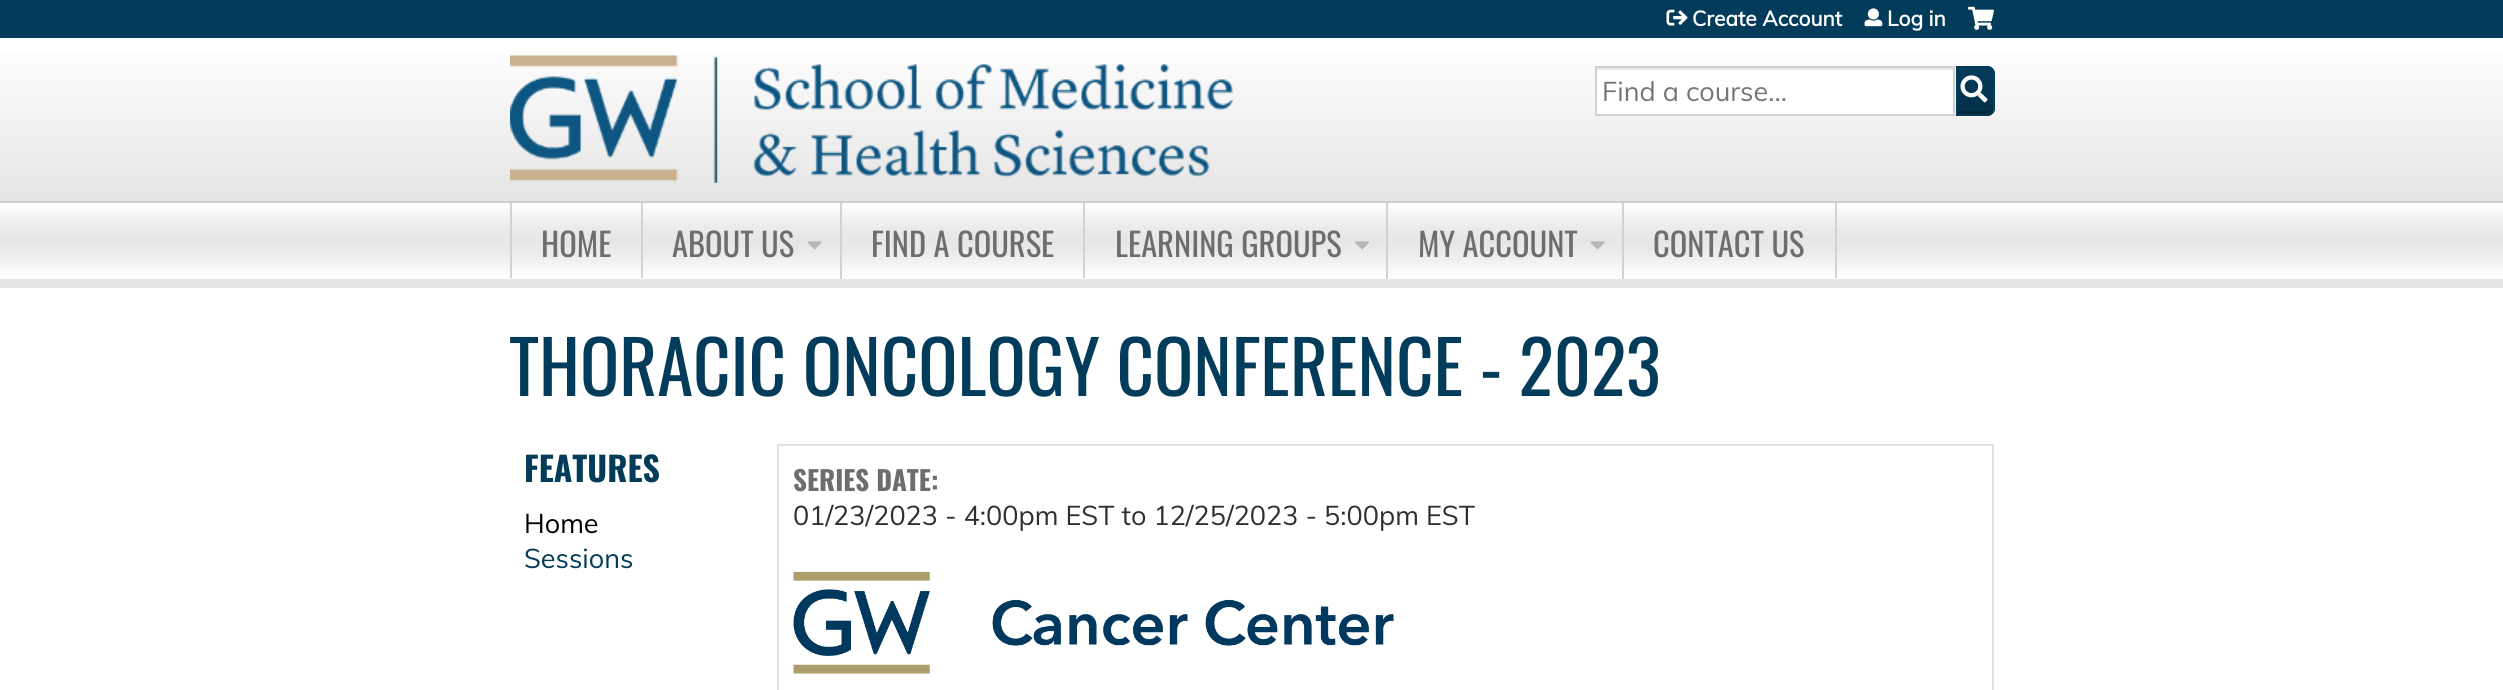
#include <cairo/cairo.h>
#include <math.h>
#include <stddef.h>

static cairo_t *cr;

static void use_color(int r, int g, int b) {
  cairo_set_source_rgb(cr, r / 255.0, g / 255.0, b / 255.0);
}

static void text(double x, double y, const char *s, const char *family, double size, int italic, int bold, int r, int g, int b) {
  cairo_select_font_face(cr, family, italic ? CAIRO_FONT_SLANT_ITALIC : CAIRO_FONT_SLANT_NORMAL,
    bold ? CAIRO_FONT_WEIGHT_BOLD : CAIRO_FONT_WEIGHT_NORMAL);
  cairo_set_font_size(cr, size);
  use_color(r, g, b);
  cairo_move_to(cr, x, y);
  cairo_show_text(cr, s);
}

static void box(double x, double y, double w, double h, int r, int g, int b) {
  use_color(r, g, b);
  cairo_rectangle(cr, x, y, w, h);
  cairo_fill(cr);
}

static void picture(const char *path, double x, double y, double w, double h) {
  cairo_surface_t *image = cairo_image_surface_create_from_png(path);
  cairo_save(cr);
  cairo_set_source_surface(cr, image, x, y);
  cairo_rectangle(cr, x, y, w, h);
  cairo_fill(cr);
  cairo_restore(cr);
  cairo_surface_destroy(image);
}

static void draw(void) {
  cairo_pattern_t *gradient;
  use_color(255, 255, 255);
  cairo_paint(cr);
  gradient = cairo_pattern_create_linear(1252, 201, 1252, 38);
  cairo_pattern_add_color_stop_rgba(gradient, 0, 0.898, 0.898, 0.898, 1);
  cairo_pattern_add_color_stop_rgba(gradient, 1, 1, 1, 1, 1);
  cairo_set_source(cr, gradient);
  cairo_pattern_destroy(gradient);
  cairo_rectangle(cr, 0, 54, 2503, 147);
  cairo_fill(cr);
  box(0, 0, 2503, 38, 3, 60, 90);
  picture("img_01.png", 510, 55, 723, 128);
  picture("img_02.png", 1666, 9, 22, 17);
  picture("img_03.png", 1864, 8, 19, 19);
  picture("img_04.png", 1968, 6, 26, 24);
  cairo_new_path(cr);
  cairo_move_to(cr, 1956, 66);
  cairo_line_to(cr, 1987, 66);
  cairo_curve_to(cr, 1991.5, 66, 1995, 69.5, 1995, 74);
  cairo_line_to(cr, 1995, 108);
  cairo_curve_to(cr, 1995, 112.5, 1991.5, 116, 1987, 116);
  cairo_line_to(cr, 1956, 116);
  cairo_close_path(cr);
  cairo_fill(cr);
  cairo_save(cr);
  cairo_new_path(cr);
  cairo_move_to(cr, 1956, 66);
  cairo_line_to(cr, 1987, 66);
  cairo_curve_to(cr, 1991.5, 66, 1995, 69.5, 1995, 74);
  cairo_line_to(cr, 1995, 108);
  cairo_curve_to(cr, 1995, 112.5, 1991.5, 116, 1987, 116);
  cairo_line_to(cr, 1956, 116);
  cairo_close_path(cr);
  cairo_clip(cr);
  gradient = cairo_pattern_create_linear(1976, 114, 1976, 68);
  cairo_pattern_add_color_stop_rgba(gradient, 0, 0, 0, 0, 0.2);
  cairo_pattern_add_color_stop_rgba(gradient, 1, 0, 0, 0, 0);
  cairo_set_source(cr, gradient);
  cairo_pattern_destroy(gradient);
  cairo_rectangle(cr, 1958, 73, 37, 41);
  cairo_fill(cr);
  cairo_restore(cr);
  use_color(2, 39, 58);
  cairo_new_path(cr);
  cairo_move_to(cr, 1958, 111);
  cairo_line_to(cr, 1958, 114);
  cairo_line_to(cr, 1988, 114);
  cairo_curve_to(cr, 1991.5, 114, 1994, 111.5, 1994, 108);
  cairo_line_to(cr, 1994, 107.5);
  cairo_curve_to(cr, 1993, 109.5, 1990.5, 111, 1988, 111);
  cairo_close_path(cr);
  cairo_fill(cr);
  cairo_new_path(cr);
  cairo_move_to(cr, 1957, 67);
  cairo_line_to(cr, 1987, 67);
  cairo_curve_to(cr, 1991, 67, 1994, 70, 1994, 74);
  cairo_line_to(cr, 1994, 108);
  cairo_curve_to(cr, 1994, 112, 1991, 115, 1987, 115);
  cairo_line_to(cr, 1957, 115);
  cairo_close_path(cr);
  use_color(3, 60, 90);
  cairo_stroke(cr);
  box(1597, 70, 356, 44, 255, 255, 255);
  box(1596, 68, 357, 2, 230, 230, 230);
  cairo_rectangle(cr, 1596, 67, 358, 48);
  use_color(209, 209, 209);
  cairo_stroke(cr);
  picture("img_05.png", 1960, 75, 28, 28);
  gradient = cairo_pattern_create_linear(1252, 202, 1252, 279);
  cairo_pattern_add_color_stop_rgba(gradient, 0, 1, 1, 1, 1);
  cairo_pattern_add_color_stop_rgba(gradient, 0.33, 0.922, 0.922, 0.922, 1);
  cairo_pattern_add_color_stop_rgba(gradient, 0.5, 0.902, 0.902, 0.902, 1);
  cairo_pattern_add_color_stop_rgba(gradient, 0.66, 0.922, 0.922, 0.922, 1);
  cairo_pattern_add_color_stop_rgba(gradient, 1, 1, 1, 1, 1);
  cairo_set_source(cr, gradient);
  cairo_pattern_destroy(gradient);
  cairo_rectangle(cr, 0, 205, 2503, 71);
  cairo_fill(cr);
  box(0, 201, 2503, 2, 204, 204, 204);
  box(0, 279, 2503, 9, 229, 229, 229);
  box(641, 203, 2, 75, 210, 210, 210);
  box(510, 203, 2, 75, 210, 210, 210);
  box(840, 203, 2, 76, 210, 210, 210);
  picture("img_06.png", 807, 241, 15, 9);
  box(1083, 203, 2, 75, 210, 210, 210);
  box(1386, 203, 2, 76, 210, 210, 210);
  picture("img_07.png", 1355, 241, 14, 9);
  box(1622, 203, 2, 76, 210, 210, 210);
  picture("img_06.png", 1590, 241, 15, 9);
  box(1835, 203, 2, 75, 210, 210, 210);
  cairo_rectangle(cr, 778, 445, 1215, 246);
  use_color(225, 225, 225);
  cairo_stroke(cr);
  picture("img_08.png", 793, 571, 601, 103);
  text(1692, 26, "Create Account", "Muli", 21, 0, 1, 255, 255, 255);
  text(1887, 26, "Log in", "Muli", 21, 0, 1, 255, 255, 255);
  text(1602, 101, "Find a course...", "Muli", 27, 0, 0, 117, 117, 117);
  text(541, 257, "HOME", "Oswald", 32.5, 0, 0, 109, 109, 109);
  text(672, 257, "ABOUT US", "Oswald", 32.5, 0, 0, 109, 109, 109);
  text(871, 257, "FIND A COURSE", "Oswald", 32.5, 0, 0, 109, 109, 109);
  text(1115, 257, "LEARNING GROUPS", "Oswald", 32.5, 0, 0, 109, 109, 109);
  text(1418, 257, "MY ACCOUNT", "Oswald", 32.5, 0, 0, 109, 109, 109);
  text(1653, 257, "CONTACT US", "Oswald", 32.5, 0, 0, 109, 109, 109);
  text(509, 396, "THORACIC ONCOLOGY CONFERENCE - 2023", "Oswald", 72.9, 0, 0, 3, 60, 90);
  text(524, 482, "FEATURES", "Oswald", 33.75, 0, 1, 3, 60, 90);
  text(524, 533, "Home", "Muli", 27, 0, 0, 0, 0, 0);
  text(524, 568, "Sessions", "Muli", 27, 0, 0, 3, 60, 90);
  text(793, 491, "SERIES DATE:", "Oswald", 27, 0, 1, 109, 109, 109);
  text(793, 525, "01/23/2023 - 4:00pm EST to 12/25/2023 - 5:00pm EST", "Muli", 27, 0, 0, 47, 47, 47);
}

int main(void) {
  cairo_surface_t *surface = cairo_image_surface_create(CAIRO_FORMAT_RGB24, 2503, 690);
  cr = cairo_create(surface);
  cairo_font_options_t *options = cairo_font_options_create();
  cairo_font_options_set_hint_metrics(options, CAIRO_HINT_METRICS_OFF);
  cairo_font_options_set_hint_style(options, CAIRO_HINT_STYLE_NONE);
  cairo_set_font_options(cr, options);
  cairo_set_miter_limit(cr, 4);
  draw();
  cairo_surface_write_to_png(surface, "out.png");
  cairo_font_options_destroy(options);
  cairo_destroy(cr);
  cairo_surface_destroy(surface);
  return 0;
}
